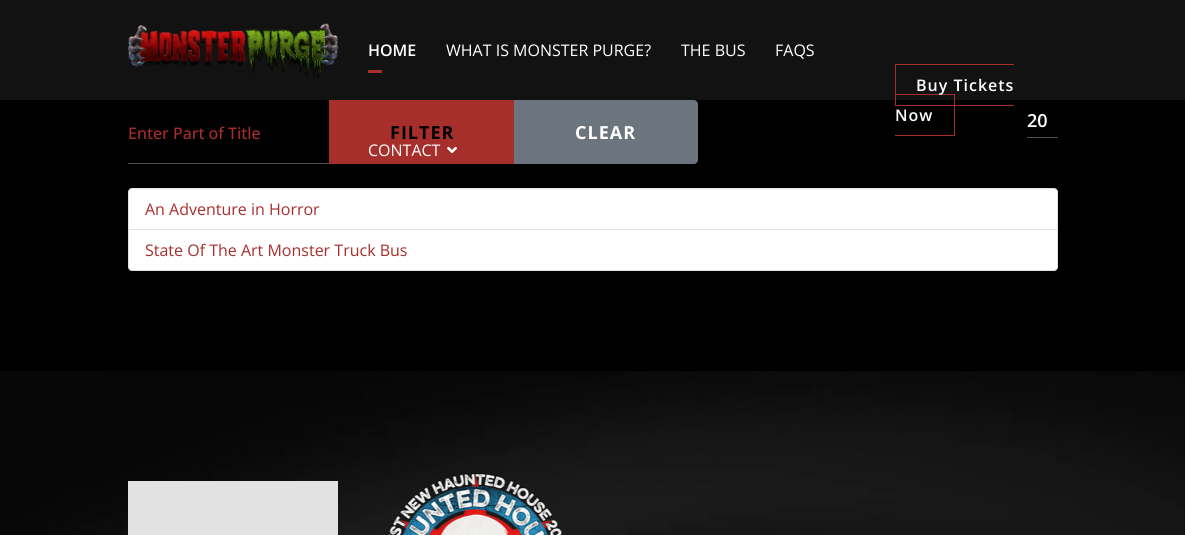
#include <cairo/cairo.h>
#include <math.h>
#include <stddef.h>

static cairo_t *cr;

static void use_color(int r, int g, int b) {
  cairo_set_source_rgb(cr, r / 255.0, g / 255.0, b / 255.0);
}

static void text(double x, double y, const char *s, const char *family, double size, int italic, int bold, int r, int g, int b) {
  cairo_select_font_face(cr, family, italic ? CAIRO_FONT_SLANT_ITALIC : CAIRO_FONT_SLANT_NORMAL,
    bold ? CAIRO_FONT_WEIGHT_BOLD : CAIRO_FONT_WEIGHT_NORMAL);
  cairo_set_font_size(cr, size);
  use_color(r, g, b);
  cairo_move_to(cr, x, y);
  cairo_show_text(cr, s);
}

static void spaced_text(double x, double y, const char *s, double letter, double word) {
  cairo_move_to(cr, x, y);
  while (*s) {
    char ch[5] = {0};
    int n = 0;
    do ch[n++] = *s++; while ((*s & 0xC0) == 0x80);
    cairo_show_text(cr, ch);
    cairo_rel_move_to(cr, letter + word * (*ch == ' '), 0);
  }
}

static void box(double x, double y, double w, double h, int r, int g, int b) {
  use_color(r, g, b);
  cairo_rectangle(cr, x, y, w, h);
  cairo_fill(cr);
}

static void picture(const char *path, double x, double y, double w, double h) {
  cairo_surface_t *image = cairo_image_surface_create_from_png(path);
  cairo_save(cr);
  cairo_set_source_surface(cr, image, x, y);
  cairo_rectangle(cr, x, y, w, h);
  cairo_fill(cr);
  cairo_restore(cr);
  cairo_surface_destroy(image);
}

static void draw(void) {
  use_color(0, 0, 0);
  cairo_paint(cr);
  box(0, 0, 1185, 100, 18, 18, 18);
  picture("img_01.png", 127, 23, 211, 55);
  box(368, 70, 14, 3, 166, 47, 44);
  box(128, 163, 202, 1, 77, 77, 77);
  box(329, 100, 185, 64, 166, 47, 44);
  picture("img_02.png", 447, 146, 10, 8);
  box(895, 64, 119, 1, 166, 47, 44);
  box(895, 105, 119, 1, 166, 47, 44);
  box(895, 64, 1, 42, 166, 47, 44);
  box(895, 94, 60, 1, 166, 47, 44);
  box(954, 94, 1, 42, 166, 47, 44);
  box(895, 135, 60, 1, 166, 47, 44);
  cairo_new_path(cr);
  cairo_move_to(cr, 1033.5, 117);
  cairo_line_to(cr, 1038, 121);
  cairo_line_to(cr, 1042.5, 117);
  use_color(52, 58, 64);
  cairo_set_line_width(cr, 1.5);
  cairo_set_line_cap(cr, CAIRO_LINE_CAP_ROUND);
  cairo_set_line_join(cr, CAIRO_LINE_JOIN_ROUND);
  cairo_stroke(cr);
  box(1027, 137, 31, 1, 77, 77, 77);
  use_color(108, 117, 125);
  cairo_new_path(cr);
  cairo_move_to(cr, 514, 100);
  cairo_line_to(cr, 694, 100);
  cairo_curve_to(cr, 696, 100, 698, 102, 698, 104);
  cairo_line_to(cr, 698, 160);
  cairo_curve_to(cr, 698, 162, 696, 164, 694, 164);
  cairo_line_to(cr, 514, 164);
  cairo_close_path(cr);
  cairo_fill(cr);
  use_color(255, 255, 255);
  cairo_new_path(cr);
  cairo_move_to(cr, 132, 188);
  cairo_line_to(cr, 1054, 188);
  cairo_curve_to(cr, 1056, 188, 1058, 190, 1058, 192);
  cairo_line_to(cr, 1058, 230);
  cairo_line_to(cr, 128, 230);
  cairo_line_to(cr, 128, 192);
  cairo_curve_to(cr, 128, 190, 130, 188, 132, 188);
  cairo_close_path(cr);
  cairo_fill(cr);
  cairo_new_path(cr);
  cairo_move_to(cr, 132, 188.5);
  cairo_line_to(cr, 1054, 188.5);
  cairo_curve_to(cr, 1056, 188.5, 1057.5, 190, 1057.5, 192);
  cairo_line_to(cr, 1057.5, 229.5);
  cairo_line_to(cr, 128.5, 229.5);
  cairo_line_to(cr, 128.5, 192);
  cairo_curve_to(cr, 128.5, 190, 130, 188.5, 132, 188.5);
  cairo_close_path(cr);
  cairo_set_source_rgba(cr, 0, 0, 0, 0.12);
  cairo_set_line_width(cr, 1);
  cairo_set_line_cap(cr, CAIRO_LINE_CAP_BUTT);
  cairo_set_line_join(cr, CAIRO_LINE_JOIN_MITER);
  cairo_stroke(cr);
  use_color(255, 255, 255);
  cairo_new_path(cr);
  cairo_move_to(cr, 128, 230);
  cairo_line_to(cr, 1058, 230);
  cairo_line_to(cr, 1058, 267);
  cairo_curve_to(cr, 1058, 269, 1056, 271, 1054, 271);
  cairo_line_to(cr, 132, 271);
  cairo_curve_to(cr, 130, 271, 128, 269, 128, 267);
  cairo_close_path(cr);
  cairo_fill(cr);
  cairo_set_source_rgba(cr, 0, 0, 0, 0.12);
  cairo_set_fill_rule(cr, CAIRO_FILL_RULE_EVEN_ODD);
  cairo_new_path(cr);
  cairo_move_to(cr, 128, 230);
  cairo_line_to(cr, 1058, 230);
  cairo_line_to(cr, 1058, 267);
  cairo_curve_to(cr, 1058, 269, 1056, 271, 1054, 271);
  cairo_line_to(cr, 132, 271);
  cairo_curve_to(cr, 130, 271, 128, 269, 128, 267);
  cairo_close_path(cr);
  cairo_move_to(cr, 129, 230);
  cairo_line_to(cr, 1057, 230);
  cairo_line_to(cr, 1057, 267);
  cairo_curve_to(cr, 1057, 269, 1056, 270, 1054, 270);
  cairo_line_to(cr, 132, 270);
  cairo_curve_to(cr, 130, 270, 129, 269, 129, 267);
  cairo_close_path(cr);
  cairo_fill(cr);
  picture("img_03.png", 0, 371, 1185, 164);
  box(128, 481, 210, 54, 226, 226, 226);
  picture("img_04.png", 387, 473, 175, 62);
  text(368, 56, "HOME", "Open Sans SemiBold", 16, 0, 0, 255, 255, 255);
  text(446, 56, "WHAT IS MONSTER PURGE?", "Open Sans", 16, 0, 0, 255, 255, 255);
  text(681, 56, "THE BUS", "Open Sans", 16, 0, 0, 255, 255, 255);
  text(775, 56, "FAQS", "Open Sans", 16, 0, 0, 255, 255, 255);
  text(368, 156, "CONTACT", "Open Sans", 16, 0, 0, 255, 255, 255);
  cairo_select_font_face(cr, "Open Sans SemiBold", CAIRO_FONT_SLANT_NORMAL, CAIRO_FONT_WEIGHT_NORMAL);
  spaced_text(916, 91, "Buy Tickets", 1, 0);
  spaced_text(895, 121, "Now", 1, 0);
  text(1027, 127, "20", "Open Sans SemiBold", 18, 0, 0, 255, 255, 255);
  text(128, 139, "Enter Part of Title", "Open Sans Medium", 16, 0, 0, 166, 47, 44);
  cairo_select_font_face(cr, "Open Sans", CAIRO_FONT_SLANT_NORMAL, CAIRO_FONT_WEIGHT_BOLD);
  cairo_set_font_size(cr, 18);
  use_color(0, 0, 0);
  spaced_text(390, 139, "FILTER", 1, 0);
  use_color(255, 255, 255);
  spaced_text(575, 139, "CLEAR", 1, 0);
  text(145, 215, "An Adventure in Horror", "Open Sans", 16, 0, 0, 166, 47, 44);
  text(145, 256, "State Of The Art Monster Truck Bus", "Open Sans", 16, 0, 0, 166, 47, 44);
}

int main(void) {
  cairo_surface_t *surface = cairo_image_surface_create(CAIRO_FORMAT_RGB24, 1185, 535);
  cr = cairo_create(surface);
  cairo_font_options_t *options = cairo_font_options_create();
  cairo_font_options_set_hint_metrics(options, CAIRO_HINT_METRICS_OFF);
  cairo_font_options_set_hint_style(options, CAIRO_HINT_STYLE_NONE);
  cairo_set_font_options(cr, options);
  cairo_set_miter_limit(cr, 4);
  draw();
  cairo_surface_write_to_png(surface, "out.png");
  cairo_font_options_destroy(options);
  cairo_destroy(cr);
  cairo_surface_destroy(surface);
  return 0;
}
